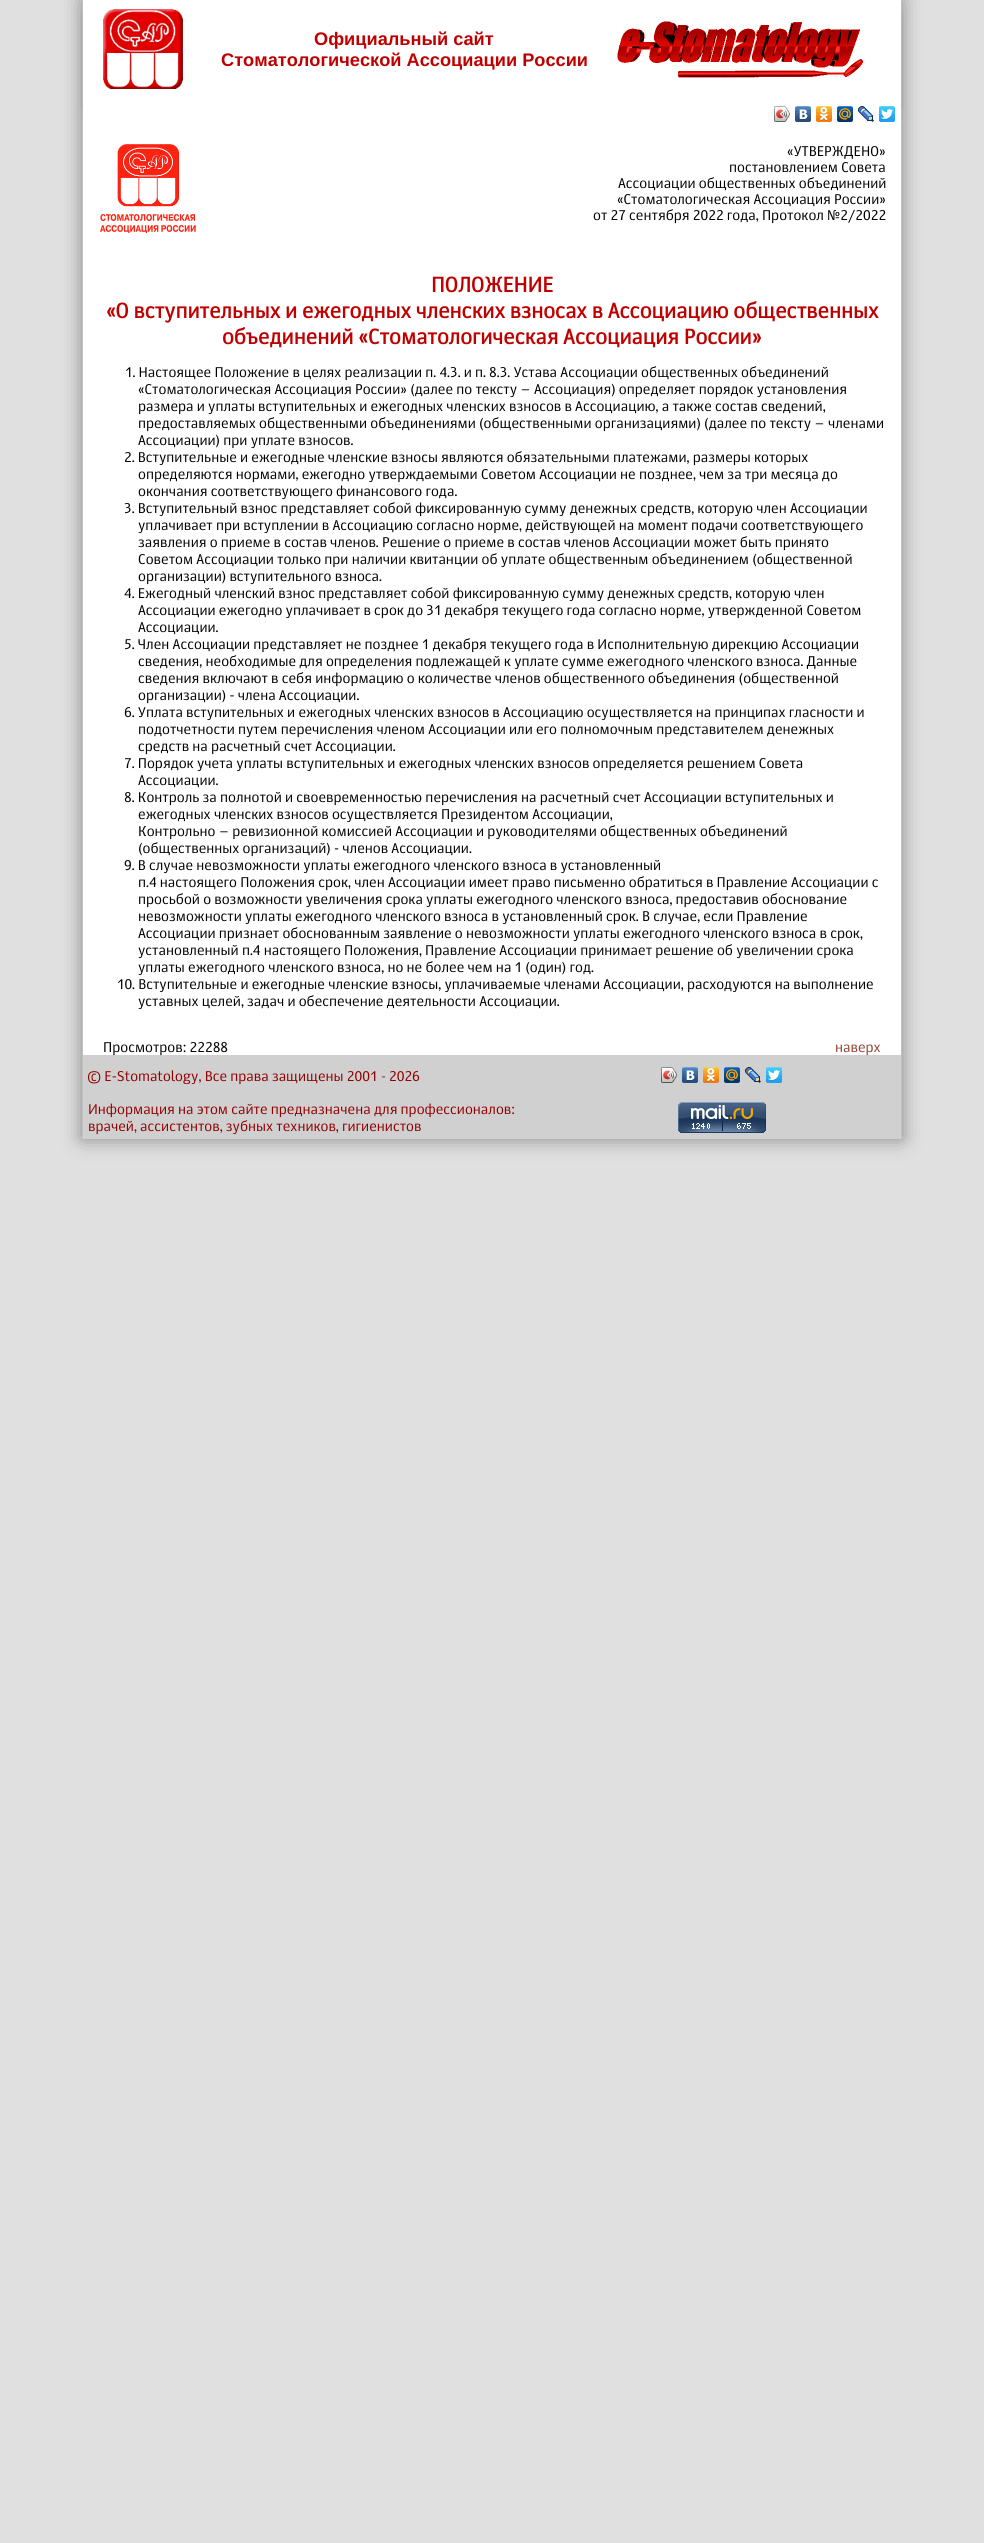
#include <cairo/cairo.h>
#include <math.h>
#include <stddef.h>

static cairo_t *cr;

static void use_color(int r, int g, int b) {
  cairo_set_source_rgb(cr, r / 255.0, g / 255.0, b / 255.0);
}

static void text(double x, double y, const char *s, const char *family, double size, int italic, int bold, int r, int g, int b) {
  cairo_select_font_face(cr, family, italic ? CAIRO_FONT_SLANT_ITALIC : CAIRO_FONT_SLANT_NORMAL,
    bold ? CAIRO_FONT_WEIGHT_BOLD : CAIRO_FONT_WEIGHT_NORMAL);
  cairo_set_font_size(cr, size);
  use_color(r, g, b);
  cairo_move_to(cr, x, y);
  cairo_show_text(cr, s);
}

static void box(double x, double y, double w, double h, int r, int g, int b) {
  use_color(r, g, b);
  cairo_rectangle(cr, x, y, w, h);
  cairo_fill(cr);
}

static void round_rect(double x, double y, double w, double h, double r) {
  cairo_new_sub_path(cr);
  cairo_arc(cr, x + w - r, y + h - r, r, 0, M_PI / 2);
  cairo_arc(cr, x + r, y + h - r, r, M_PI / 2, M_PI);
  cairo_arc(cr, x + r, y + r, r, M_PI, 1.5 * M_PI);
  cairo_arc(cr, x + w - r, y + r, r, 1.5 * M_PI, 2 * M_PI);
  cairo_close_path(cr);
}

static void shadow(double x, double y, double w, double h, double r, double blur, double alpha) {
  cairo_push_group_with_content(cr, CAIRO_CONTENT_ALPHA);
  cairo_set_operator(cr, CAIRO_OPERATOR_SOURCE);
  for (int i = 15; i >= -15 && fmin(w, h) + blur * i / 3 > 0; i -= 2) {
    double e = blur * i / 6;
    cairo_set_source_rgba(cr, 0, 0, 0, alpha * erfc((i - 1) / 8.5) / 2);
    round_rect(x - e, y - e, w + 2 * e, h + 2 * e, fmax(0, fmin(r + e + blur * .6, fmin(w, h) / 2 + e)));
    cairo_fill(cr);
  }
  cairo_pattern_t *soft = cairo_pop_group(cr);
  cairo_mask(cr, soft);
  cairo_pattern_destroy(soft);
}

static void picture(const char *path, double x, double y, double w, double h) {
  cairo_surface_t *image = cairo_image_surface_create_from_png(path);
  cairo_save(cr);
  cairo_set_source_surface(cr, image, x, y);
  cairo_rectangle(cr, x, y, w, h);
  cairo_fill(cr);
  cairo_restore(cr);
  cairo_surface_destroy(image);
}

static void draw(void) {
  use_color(224, 224, 224);
  cairo_paint(cr);
  use_color(0, 0, 0);
  shadow(82, 0, 820, 1139, 0, 10, 0.4);
  box(83, 0, 818, 1055, 255, 255, 255);
  box(901, 0, 1, 1139, 192, 192, 192);
  box(82, 0, 1, 1139, 192, 192, 192);
  cairo_save(cr);
  cairo_set_fill_rule(cr, CAIRO_FILL_RULE_EVEN_ODD);
  cairo_new_path(cr);
  cairo_move_to(cr, 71, 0);
  cairo_line_to(cr, 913, 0);
  cairo_line_to(cr, 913, 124);
  cairo_line_to(cr, 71, 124);
  cairo_close_path(cr);
  cairo_move_to(cr, 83, 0);
  cairo_line_to(cr, 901, 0);
  cairo_line_to(cr, 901, 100);
  cairo_line_to(cr, 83, 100);
  cairo_close_path(cr);
  cairo_clip(cr);
  use_color(0, 0, 0);
  shadow(87, 16, 810, 92, 0, 5, 0.2);
  cairo_restore(cr);
  picture("img_01.png", 103, 9, 80, 80);
  picture("img_02.png", 617, 21, 246, 57);
  box(83, 100, 818, 16, 255, 255, 255);
  picture("img_03.png", 774, 106, 16, 16);
  picture("img_04.png", 774, 106, 16, 16);
  picture("img_05.png", 795, 106, 16, 16);
  picture("img_06.png", 816, 106, 16, 16);
  picture("img_07.png", 837, 106, 16, 16);
  picture("img_08.png", 858, 106, 16, 16);
  picture("img_09.png", 879, 106, 16, 16);
  picture("img_10.png", 100, 144, 96, 89);
  box(83, 1055, 818, 84, 208, 208, 208);
  picture("img_11.png", 661, 1067, 16, 16);
  picture("img_12.png", 661, 1067, 16, 16);
  picture("img_13.png", 682, 1067, 16, 16);
  picture("img_14.png", 703, 1067, 16, 16);
  picture("img_15.png", 724, 1067, 16, 16);
  picture("img_16.png", 745, 1067, 16, 16);
  picture("img_17.png", 766, 1067, 16, 16);
  picture("img_18.png", 678, 1102, 88, 31);
  text(314, 45, "Официальный сайт", "Liberation Sans", 18.2, 0, 1, 192, 0, 0);
  text(221, 66, "Стоматологической Ассоциации России", "Liberation Sans", 18.2, 0, 1, 192, 0, 0);
  text(787, 156, "«УТВЕРЖДЕНО»", "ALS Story", 14, 0, 0, 0, 0, 0);
  text(729, 172, "постановлением Совета", "ALS Story", 14, 0, 0, 0, 0, 0);
  text(618, 188, "Ассоциации общественных объединений", "ALS Story", 14, 0, 0, 0, 0, 0);
  text(617, 204, "«Стоматологическая Ассоциация России»", "ALS Story", 14, 0, 0, 0, 0, 0);
  text(593, 220, "от 27 сентября 2022 года, Протокол №2/2022", "ALS Story", 14, 0, 0, 0, 0, 0);
  text(431, 292, "ПОЛОЖЕНИЕ", "ALS Story", 21, 0, 1, 192, 0, 0);
  text(106, 318, "«О вступительных и ежегодных членских взносах в Ассоциацию общественных", "ALS Story", 21, 0, 1, 192, 0, 0);
  text(222, 344, "объединений «Стоматологическая Ассоциация России»", "ALS Story", 21, 0, 1, 192, 0, 0);
  text(125, 377, "1. Настоящее Положение в целях реализации п. 4.3. и п. 8.3. Устава Ассоциации общественных объединений", "ALS Story", 14, 0, 0, 0, 0, 0);
  text(138, 394, "«Стоматологическая Ассоциация России» (далее по тексту – Ассоциация) определяет порядок установления", "ALS Story", 14, 0, 0, 0, 0, 0);
  text(138, 411, "размера и уплаты вступительных и ежегодных членских взносов в Ассоциацию, а также состав сведений,", "ALS Story", 14, 0, 0, 0, 0, 0);
  text(138, 428, "предоставляемых общественными объединениями (общественными организациями) (далее по тексту – членами", "ALS Story", 14, 0, 0, 0, 0, 0);
  text(138, 445, "Ассоциации) при уплате взносов.", "ALS Story", 14, 0, 0, 0, 0, 0);
  text(124, 462, "2. Вступительные и ежегодные членские взносы являются обязательными платежами, размеры которых", "ALS Story", 14, 0, 0, 0, 0, 0);
  text(138, 479, "определяются нормами, ежегодно утверждаемыми Советом Ассоциации не позднее, чем за три месяца до", "ALS Story", 14, 0, 0, 0, 0, 0);
  text(138, 496, "окончания соответствующего финансового года.", "ALS Story", 14, 0, 0, 0, 0, 0);
  text(124, 513, "3. Вступительный взнос представляет собой фиксированную сумму денежных средств, которую член Ассоциации", "ALS Story", 14, 0, 0, 0, 0, 0);
  text(138, 530, "уплачивает при вступлении в Ассоциацию согласно норме, действующей на момент подачи соответствующего", "ALS Story", 14, 0, 0, 0, 0, 0);
  text(138, 547, "заявления о приеме в состав членов. Решение о приеме в состав членов Ассоциации может быть принято", "ALS Story", 14, 0, 0, 0, 0, 0);
  text(138, 564, "Советом Ассоциации только при наличии квитанции об уплате общественным объединением (общественной", "ALS Story", 14, 0, 0, 0, 0, 0);
  text(138, 581, "организации) вступительного взноса.", "ALS Story", 14, 0, 0, 0, 0, 0);
  text(124, 598, "4. Ежегодный членский взнос представляет собой фиксированную сумму денежных средств, которую член", "ALS Story", 14, 0, 0, 0, 0, 0);
  text(138, 615, "Ассоциации ежегодно уплачивает в срок до 31 декабря текущего года согласно норме, утвержденной Советом", "ALS Story", 14, 0, 0, 0, 0, 0);
  text(138, 632, "Ассоциации.", "ALS Story", 14, 0, 0, 0, 0, 0);
  text(124, 649, "5. Член Ассоциации представляет не позднее 1 декабря текущего года в Исполнительную дирекцию Ассоциации", "ALS Story", 14, 0, 0, 0, 0, 0);
  text(138, 666, "сведения, необходимые для определения подлежащей к уплате сумме ежегодного членского взноса. Данные", "ALS Story", 14, 0, 0, 0, 0, 0);
  text(138, 683, "сведения включают в себя информацию о количестве членов общественного объединения (общественной", "ALS Story", 14, 0, 0, 0, 0, 0);
  text(138, 700, "организации) - члена Ассоциации.", "ALS Story", 14, 0, 0, 0, 0, 0);
  text(124, 717, "6. Уплата вступительных и ежегодных членских взносов в Ассоциацию осуществляется на принципах гласности и", "ALS Story", 14, 0, 0, 0, 0, 0);
  text(138, 734, "подотчетности путем перечисления членом Ассоциации или его полномочным представителем денежных", "ALS Story", 14, 0, 0, 0, 0, 0);
  text(138, 751, "средств на расчетный счет Ассоциации.", "ALS Story", 14, 0, 0, 0, 0, 0);
  text(124, 768, "7. Порядок учета уплаты вступительных и ежегодных членских взносов определяется решением Совета", "ALS Story", 14, 0, 0, 0, 0, 0);
  text(138, 785, "Ассоциации.", "ALS Story", 14, 0, 0, 0, 0, 0);
  text(124, 802, "8. Контроль за полнотой и своевременностью перечисления на расчетный счет Ассоциации вступительных и", "ALS Story", 14, 0, 0, 0, 0, 0);
  text(138, 819, "ежегодных членских взносов осуществляется Президентом Ассоциации,", "ALS Story", 14, 0, 0, 0, 0, 0);
  text(138, 836, "Контрольно – ревизионной комиссией Ассоциации и руководителями общественных объединений", "ALS Story", 14, 0, 0, 0, 0, 0);
  text(138, 853, "(общественных организаций) - членов Ассоциации.", "ALS Story", 14, 0, 0, 0, 0, 0);
  text(124, 870, "9. В случае невозможности уплаты ежегодного членского взноса в установленный", "ALS Story", 14, 0, 0, 0, 0, 0);
  text(138, 887, "п.4 настоящего Положения срок, член Ассоциации имеет право письменно обратиться в Правление Ассоциации с", "ALS Story", 14, 0, 0, 0, 0, 0);
  text(138, 904, "просьбой о возможности увеличения срока уплаты ежегодного членского взноса, предоставив обоснование", "ALS Story", 14, 0, 0, 0, 0, 0);
  text(138, 921, "невозможности уплаты ежегодного членского взноса в установленный срок. В случае, если Правление", "ALS Story", 14, 0, 0, 0, 0, 0);
  text(138, 938, "Ассоциации признает обоснованным заявление о невозможности уплаты ежегодного членского взноса в срок,", "ALS Story", 14, 0, 0, 0, 0, 0);
  text(138, 955, "установленный п.4 настоящего Положения, Правление Ассоциации принимает решение об увеличении срока", "ALS Story", 14, 0, 0, 0, 0, 0);
  text(138, 972, "уплаты ежегодного членского взноса, но не более чем на 1 (один) год.", "ALS Story", 14, 0, 0, 0, 0, 0);
  text(117, 989, "10. Вступительные и ежегодные членские взносы, уплачиваемые членами Ассоциации, расходуются на выполнение", "ALS Story", 14, 0, 0, 0, 0, 0);
  text(138, 1006, "уставных целей, задач и обеспечение деятельности Ассоциации.", "ALS Story", 14, 0, 0, 0, 0, 0);
  text(103, 1052, "Просмотров: 22288", "ALS Story", 14, 0, 0, 0, 0, 0);
  text(835, 1052, "наверх", "ALS Story", 14, 0, 0, 144, 64, 48);
  text(88, 1081, "© E-Stomatology, Все права защищены 2001", "ALS Story", 14, 0, 0, 144, 0, 0);
  text(381, 1081, "-", "ALS Story", 14, 0, 0, 144, 64, 48);
  text(389, 1081, "2026", "ALS Story", 14, 0, 0, 144, 0, 0);
  text(88, 1114, "Информация на этом сайте предназначена для профессионалов:", "ALS Story", 14, 0, 0, 144, 0, 0);
  text(88, 1131, "врачей, ассистентов, зубных техников, гигиенистов", "ALS Story", 14, 0, 0, 144, 0, 0);
}

int main(void) {
  cairo_surface_t *surface = cairo_image_surface_create(CAIRO_FORMAT_RGB24, 984, 2543);
  cr = cairo_create(surface);
  cairo_font_options_t *options = cairo_font_options_create();
  cairo_font_options_set_hint_metrics(options, CAIRO_HINT_METRICS_OFF);
  cairo_font_options_set_hint_style(options, CAIRO_HINT_STYLE_NONE);
  cairo_set_font_options(cr, options);
  cairo_set_miter_limit(cr, 4);
  draw();
  cairo_surface_write_to_png(surface, "out.png");
  cairo_font_options_destroy(options);
  cairo_destroy(cr);
  cairo_surface_destroy(surface);
  return 0;
}
